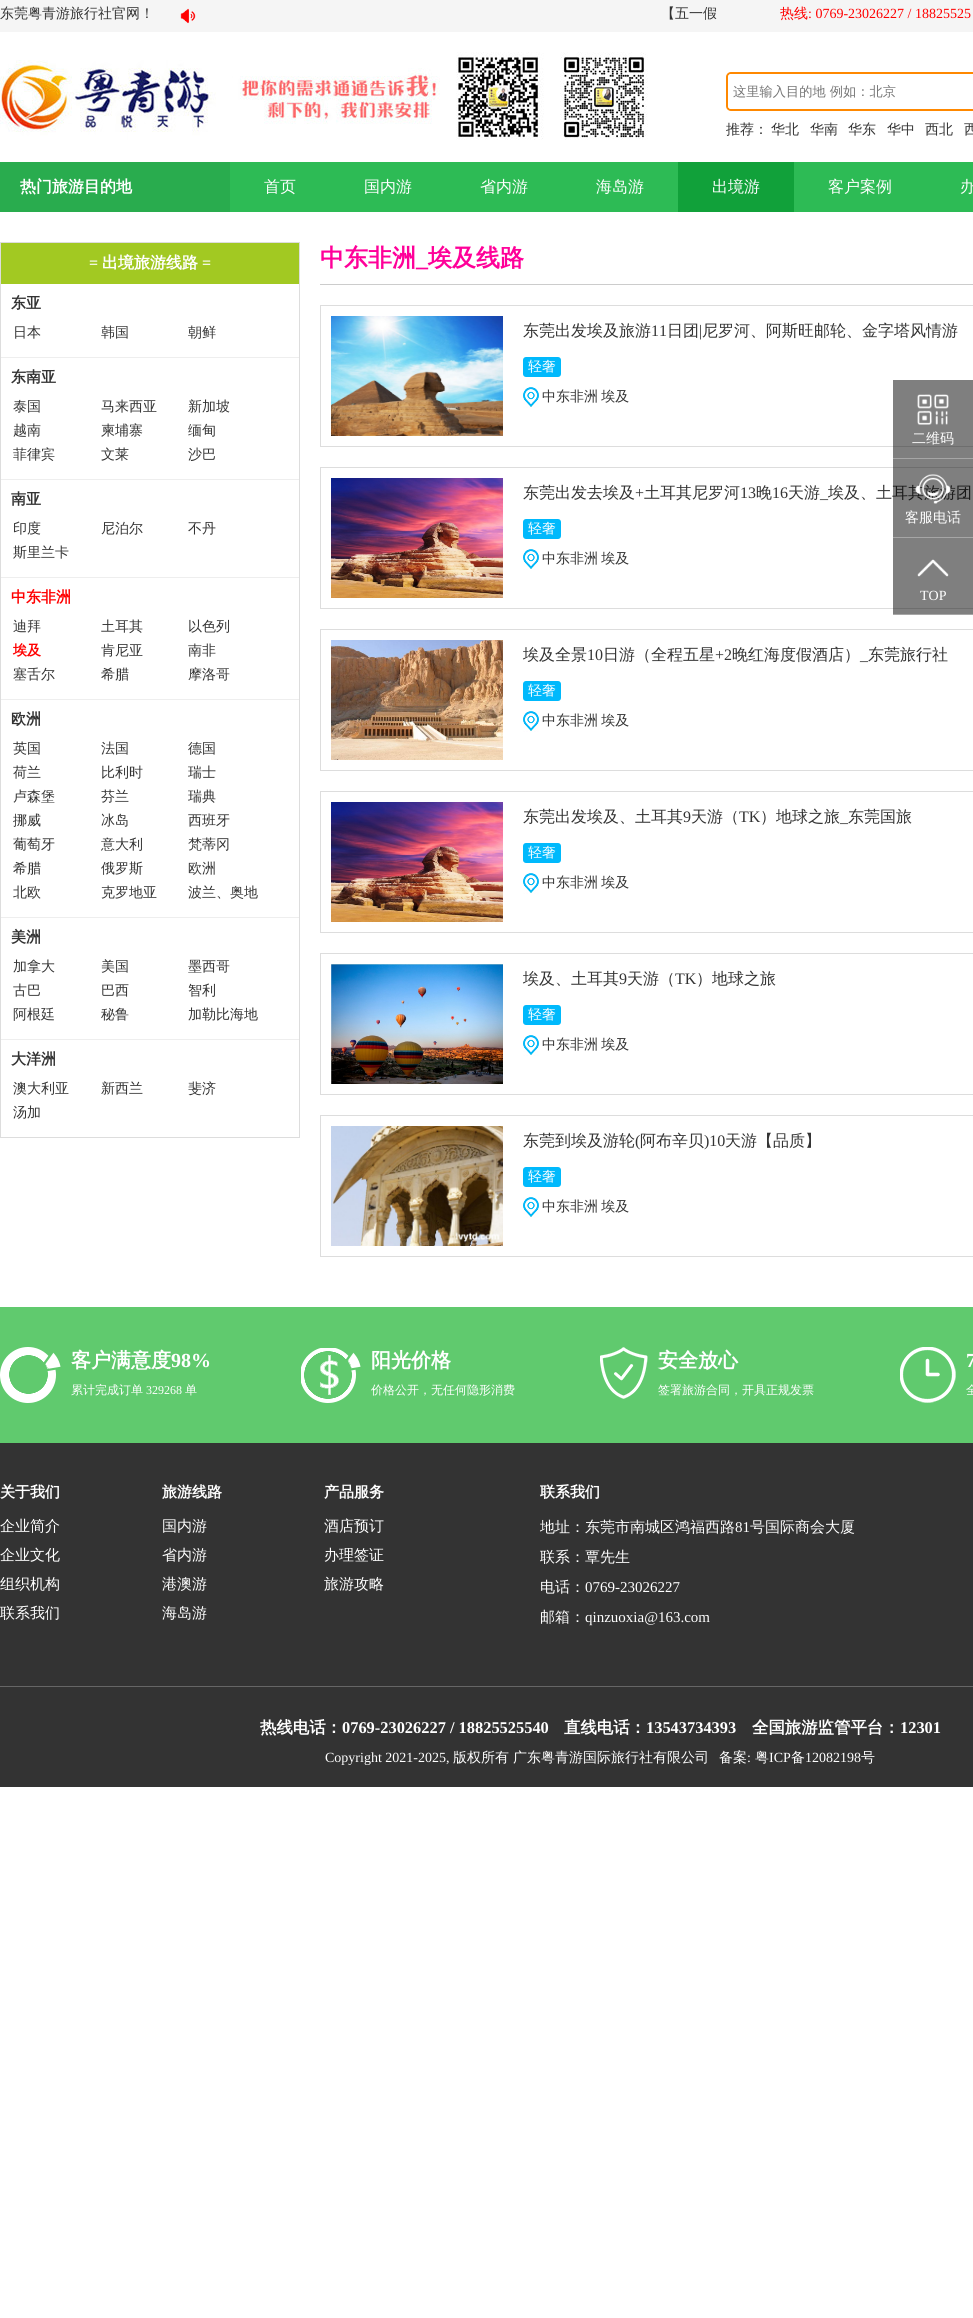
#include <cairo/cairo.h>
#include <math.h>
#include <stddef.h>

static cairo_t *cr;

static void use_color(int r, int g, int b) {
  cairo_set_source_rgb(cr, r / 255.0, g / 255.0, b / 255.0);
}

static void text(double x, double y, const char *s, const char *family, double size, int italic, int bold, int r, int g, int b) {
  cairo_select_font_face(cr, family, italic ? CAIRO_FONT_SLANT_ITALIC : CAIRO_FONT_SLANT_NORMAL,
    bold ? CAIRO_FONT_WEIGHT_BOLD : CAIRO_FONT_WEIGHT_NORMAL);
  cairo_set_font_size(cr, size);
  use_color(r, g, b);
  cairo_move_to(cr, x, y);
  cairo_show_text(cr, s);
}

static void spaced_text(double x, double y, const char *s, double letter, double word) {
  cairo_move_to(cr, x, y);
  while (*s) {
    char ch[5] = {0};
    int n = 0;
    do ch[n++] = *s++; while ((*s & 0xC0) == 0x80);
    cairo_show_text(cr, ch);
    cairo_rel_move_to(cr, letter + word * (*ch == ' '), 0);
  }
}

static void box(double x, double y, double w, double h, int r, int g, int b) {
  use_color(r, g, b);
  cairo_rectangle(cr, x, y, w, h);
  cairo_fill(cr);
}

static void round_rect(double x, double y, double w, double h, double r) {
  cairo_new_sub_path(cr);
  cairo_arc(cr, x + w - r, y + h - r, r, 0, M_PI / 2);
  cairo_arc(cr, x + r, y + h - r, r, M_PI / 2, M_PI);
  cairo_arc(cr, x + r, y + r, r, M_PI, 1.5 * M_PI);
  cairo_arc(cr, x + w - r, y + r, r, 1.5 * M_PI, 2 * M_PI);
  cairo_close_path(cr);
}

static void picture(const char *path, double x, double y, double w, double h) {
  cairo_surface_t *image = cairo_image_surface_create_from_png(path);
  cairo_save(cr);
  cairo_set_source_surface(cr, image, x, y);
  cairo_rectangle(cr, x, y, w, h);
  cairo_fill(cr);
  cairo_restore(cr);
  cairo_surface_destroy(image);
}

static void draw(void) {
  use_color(255, 255, 255);
  cairo_paint(cr);
  box(0, 0, 973, 32, 245, 245, 245);
  picture("img_01.png", 180, 8, 16, 16);
  picture("img_02.png", 0, 52, 648, 88);
  round_rect(727, 73, 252, 37, 4);
  use_color(255, 136, 0);
  cairo_stroke(cr);
  use_color(255, 255, 255);
  cairo_new_path(cr);
  cairo_move_to(cr, 731, 74);
  cairo_line_to(cr, 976, 74);
  cairo_line_to(cr, 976, 109);
  cairo_line_to(cr, 731, 109);
  cairo_curve_to(cr, 729.5, 109, 728, 107.5, 728, 106);
  cairo_line_to(cr, 728, 77);
  cairo_curve_to(cr, 728, 75.5, 729.5, 74, 731, 74);
  cairo_close_path(cr);
  cairo_fill(cr);
  box(230, 162, 743, 50, 45, 187, 85);
  box(0, 162, 230, 50, 41, 172, 78);
  box(678, 162, 116, 50, 17, 161, 58);
  cairo_rectangle(cr, 0.5, 242.5, 299, 895);
  use_color(221, 221, 221);
  cairo_set_line_width(cr, 1);
  cairo_stroke(cr);
  box(1, 243, 298, 41, 162, 201, 34);
  box(1, 357, 298, 1, 238, 238, 238);
  box(1, 479, 298, 1, 238, 238, 238);
  box(1, 577, 298, 1, 238, 238, 238);
  box(1, 699, 298, 1, 238, 238, 238);
  box(1, 917, 298, 1, 238, 238, 238);
  box(1, 1039, 298, 1, 238, 238, 238);
  box(320, 284, 653, 1, 204, 204, 204);
  cairo_rectangle(cr, 320.5, 305.5, 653, 141);
  use_color(221, 221, 221);
  cairo_stroke(cr);
  picture("img_03.png", 331, 316, 172, 120);
  use_color(0, 185, 252);
  round_rect(523, 357, 38, 20, 3);
  cairo_fill(cr);
  picture("img_04.png", 523, 387, 16, 21);
  cairo_rectangle(cr, 320.5, 467.5, 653, 141);
  use_color(221, 221, 221);
  cairo_stroke(cr);
  picture("img_05.png", 331, 478, 172, 120);
  use_color(0, 185, 252);
  round_rect(523, 519, 38, 20, 3);
  cairo_fill(cr);
  picture("img_04.png", 523, 549, 16, 21);
  cairo_rectangle(cr, 320.5, 629.5, 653, 141);
  use_color(221, 221, 221);
  cairo_stroke(cr);
  picture("img_06.png", 331, 640, 172, 120);
  use_color(0, 185, 252);
  round_rect(523, 681, 38, 20, 3);
  cairo_fill(cr);
  picture("img_04.png", 523, 711, 16, 21);
  cairo_rectangle(cr, 320.5, 791.5, 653, 141);
  use_color(221, 221, 221);
  cairo_stroke(cr);
  picture("img_07.png", 331, 802, 172, 120);
  use_color(0, 185, 252);
  round_rect(523, 843, 38, 20, 3);
  cairo_fill(cr);
  picture("img_04.png", 523, 873, 16, 21);
  cairo_rectangle(cr, 320.5, 953.5, 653, 141);
  use_color(221, 221, 221);
  cairo_stroke(cr);
  picture("img_08.png", 331, 964, 172, 120);
  use_color(0, 185, 252);
  round_rect(523, 1005, 38, 20, 3);
  cairo_fill(cr);
  picture("img_04.png", 523, 1035, 16, 21);
  cairo_rectangle(cr, 320.5, 1115.5, 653, 141);
  use_color(221, 221, 221);
  cairo_stroke(cr);
  picture("img_09.png", 331, 1126, 172, 120);
  use_color(0, 185, 252);
  round_rect(523, 1167, 38, 20, 3);
  cairo_fill(cr);
  picture("img_04.png", 523, 1197, 16, 21);
  box(893, 614, 80, 1, 166, 166, 166);
  box(0, 1307, 973, 136, 96, 202, 110);
  picture("img_13.png", 0, 1347, 61, 56);
  picture("img_14.png", 301, 1348, 60, 55);
  picture("img_15.png", 600, 1347, 48, 52);
  picture("img_16.png", 900, 1347, 56, 56);
  box(0, 1443, 973, 344, 51, 51, 51);
  box(0, 1686, 973, 1, 102, 102, 102);
  text(0, 18, "东莞粤青游旅行社官网！", "WenQuanYi Zen Hei Medium", 14, 0, 0, 51, 51, 51);
  text(661, 18, "【五一假", "WenQuanYi Zen Hei Medium", 14, 0, 0, 51, 51, 51);
  text(780, 18, "热线", "WenQuanYi Zen Hei Medium", 14, 0, 0, 255, 0, 0);
  text(808, 18, ": 0769-23026227 / 18825525", "Liberation Serif", 14, 0, 0, 255, 0, 0);
  text(733, 96, "这里输入目的地 例如：北京", "WenQuanYi Zen Hei Medium", 13.25, 0, 0, 117, 117, 117);
  text(726, 134, "推荐：", "WenQuanYi Zen Hei Medium", 14, 0, 0, 51, 51, 51);
  text(771, 134, "华北", "WenQuanYi Zen Hei Medium", 14, 0, 0, 51, 51, 51);
  text(810, 134, "华南", "WenQuanYi Zen Hei Medium", 14, 0, 0, 51, 51, 51);
  text(848, 134, "华东", "WenQuanYi Zen Hei Medium", 14, 0, 0, 51, 51, 51);
  text(887, 134, "华中", "WenQuanYi Zen Hei Medium", 14, 0, 0, 51, 51, 51);
  text(925, 134, "西北", "WenQuanYi Zen Hei Medium", 14, 0, 0, 51, 51, 51);
  text(964, 134, "西", "WenQuanYi Zen Hei Medium", 14, 0, 0, 51, 51, 51);
  text(20, 192, "热门旅游目的地", "WenQuanYi Zen Hei", 16, 0, 1, 255, 255, 255);
  text(264, 192, "首页", "WenQuanYi Zen Hei Medium", 16, 0, 0, 255, 255, 255);
  text(364, 192, "国内游", "WenQuanYi Zen Hei Medium", 16, 0, 0, 255, 255, 255);
  text(480, 192, "省内游", "WenQuanYi Zen Hei Medium", 16, 0, 0, 255, 255, 255);
  text(596, 192, "海岛游", "WenQuanYi Zen Hei Medium", 16, 0, 0, 255, 255, 255);
  text(712, 192, "出境游", "WenQuanYi Zen Hei Medium", 16, 0, 0, 255, 255, 255);
  text(828, 192, "客户案例", "WenQuanYi Zen Hei Medium", 16, 0, 0, 255, 255, 255);
  text(960, 192, "办", "WenQuanYi Zen Hei Medium", 16, 0, 0, 255, 255, 255);
  text(89, 268, "=", "Liberation Serif", 16, 0, 1, 255, 255, 255);
  text(102, 268, "出境旅游线路", "WenQuanYi Zen Hei", 16, 0, 1, 255, 255, 255);
  text(202, 268, "=", "Liberation Serif", 16, 0, 1, 255, 255, 255);
  text(11, 308, "东亚", "WenQuanYi Zen Hei", 15, 0, 1, 51, 51, 51);
  text(13, 337, "日本", "WenQuanYi Zen Hei Medium", 14, 0, 0, 51, 51, 51);
  text(101, 337, "韩国", "WenQuanYi Zen Hei Medium", 14, 0, 0, 51, 51, 51);
  text(188, 337, "朝鲜", "WenQuanYi Zen Hei Medium", 14, 0, 0, 51, 51, 51);
  text(11, 382, "东南亚", "WenQuanYi Zen Hei", 15, 0, 1, 51, 51, 51);
  text(13, 411, "泰国", "WenQuanYi Zen Hei Medium", 14, 0, 0, 51, 51, 51);
  text(101, 411, "马来西亚", "WenQuanYi Zen Hei Medium", 14, 0, 0, 51, 51, 51);
  text(188, 411, "新加坡", "WenQuanYi Zen Hei Medium", 14, 0, 0, 51, 51, 51);
  text(13, 435, "越南", "WenQuanYi Zen Hei Medium", 14, 0, 0, 51, 51, 51);
  text(101, 435, "柬埔寨", "WenQuanYi Zen Hei Medium", 14, 0, 0, 51, 51, 51);
  text(188, 435, "缅甸", "WenQuanYi Zen Hei Medium", 14, 0, 0, 51, 51, 51);
  text(13, 459, "菲律宾", "WenQuanYi Zen Hei Medium", 14, 0, 0, 51, 51, 51);
  text(101, 459, "文莱", "WenQuanYi Zen Hei Medium", 14, 0, 0, 51, 51, 51);
  text(188, 459, "沙巴", "WenQuanYi Zen Hei Medium", 14, 0, 0, 51, 51, 51);
  text(11, 504, "南亚", "WenQuanYi Zen Hei", 15, 0, 1, 51, 51, 51);
  text(13, 533, "印度", "WenQuanYi Zen Hei Medium", 14, 0, 0, 51, 51, 51);
  text(101, 533, "尼泊尔", "WenQuanYi Zen Hei Medium", 14, 0, 0, 51, 51, 51);
  text(188, 533, "不丹", "WenQuanYi Zen Hei Medium", 14, 0, 0, 51, 51, 51);
  text(13, 557, "斯里兰卡", "WenQuanYi Zen Hei Medium", 14, 0, 0, 51, 51, 51);
  text(11, 602, "中东非洲", "WenQuanYi Zen Hei", 15, 0, 1, 255, 0, 0);
  text(13, 631, "迪拜", "WenQuanYi Zen Hei Medium", 14, 0, 0, 51, 51, 51);
  text(101, 631, "土耳其", "WenQuanYi Zen Hei Medium", 14, 0, 0, 51, 51, 51);
  text(188, 631, "以色列", "WenQuanYi Zen Hei Medium", 14, 0, 0, 51, 51, 51);
  text(13, 655, "埃及", "WenQuanYi Zen Hei", 14, 0, 1, 255, 0, 0);
  text(101, 655, "肯尼亚", "WenQuanYi Zen Hei Medium", 14, 0, 0, 51, 51, 51);
  text(188, 655, "南非", "WenQuanYi Zen Hei Medium", 14, 0, 0, 51, 51, 51);
  text(13, 679, "塞舌尔", "WenQuanYi Zen Hei Medium", 14, 0, 0, 51, 51, 51);
  text(101, 679, "希腊", "WenQuanYi Zen Hei Medium", 14, 0, 0, 51, 51, 51);
  text(188, 679, "摩洛哥", "WenQuanYi Zen Hei Medium", 14, 0, 0, 51, 51, 51);
  text(11, 724, "欧洲", "WenQuanYi Zen Hei", 15, 0, 1, 51, 51, 51);
  text(13, 753, "英国", "WenQuanYi Zen Hei Medium", 14, 0, 0, 51, 51, 51);
  text(101, 753, "法国", "WenQuanYi Zen Hei Medium", 14, 0, 0, 51, 51, 51);
  text(188, 753, "德国", "WenQuanYi Zen Hei Medium", 14, 0, 0, 51, 51, 51);
  text(13, 777, "荷兰", "WenQuanYi Zen Hei Medium", 14, 0, 0, 51, 51, 51);
  text(101, 777, "比利时", "WenQuanYi Zen Hei Medium", 14, 0, 0, 51, 51, 51);
  text(188, 777, "瑞士", "WenQuanYi Zen Hei Medium", 14, 0, 0, 51, 51, 51);
  text(13, 801, "卢森堡", "WenQuanYi Zen Hei Medium", 14, 0, 0, 51, 51, 51);
  text(101, 801, "芬兰", "WenQuanYi Zen Hei Medium", 14, 0, 0, 51, 51, 51);
  text(188, 801, "瑞典", "WenQuanYi Zen Hei Medium", 14, 0, 0, 51, 51, 51);
  text(13, 825, "挪威", "WenQuanYi Zen Hei Medium", 14, 0, 0, 51, 51, 51);
  text(101, 825, "冰岛", "WenQuanYi Zen Hei Medium", 14, 0, 0, 51, 51, 51);
  text(188, 825, "西班牙", "WenQuanYi Zen Hei Medium", 14, 0, 0, 51, 51, 51);
  text(13, 849, "葡萄牙", "WenQuanYi Zen Hei Medium", 14, 0, 0, 51, 51, 51);
  cairo_save(cr);
  cairo_rectangle(cr, 101, 837, 80, 16);
  cairo_clip(cr);
  text(101, 849, "意大利", "WenQuanYi Zen Hei Medium", 14, 0, 0, 51, 51, 51);
  cairo_restore(cr);
  text(188, 849, "梵蒂冈", "WenQuanYi Zen Hei Medium", 14, 0, 0, 51, 51, 51);
  text(13, 873, "希腊", "WenQuanYi Zen Hei Medium", 14, 0, 0, 51, 51, 51);
  text(101, 873, "俄罗斯", "WenQuanYi Zen Hei Medium", 14, 0, 0, 51, 51, 51);
  text(188, 873, "欧洲", "WenQuanYi Zen Hei Medium", 14, 0, 0, 51, 51, 51);
  text(13, 897, "北欧", "WenQuanYi Zen Hei Medium", 14, 0, 0, 51, 51, 51);
  text(101, 897, "克罗地亚", "WenQuanYi Zen Hei Medium", 14, 0, 0, 51, 51, 51);
  text(188, 897, "波兰、奥地", "WenQuanYi Zen Hei Medium", 14, 0, 0, 51, 51, 51);
  text(11, 942, "美洲", "WenQuanYi Zen Hei", 15, 0, 1, 51, 51, 51);
  text(13, 971, "加拿大", "WenQuanYi Zen Hei Medium", 14, 0, 0, 51, 51, 51);
  text(101, 971, "美国", "WenQuanYi Zen Hei Medium", 14, 0, 0, 51, 51, 51);
  text(188, 971, "墨西哥", "WenQuanYi Zen Hei Medium", 14, 0, 0, 51, 51, 51);
  text(13, 995, "古巴", "WenQuanYi Zen Hei Medium", 14, 0, 0, 51, 51, 51);
  text(101, 995, "巴西", "WenQuanYi Zen Hei Medium", 14, 0, 0, 51, 51, 51);
  text(188, 995, "智利", "WenQuanYi Zen Hei Medium", 14, 0, 0, 51, 51, 51);
  text(13, 1019, "阿根廷", "WenQuanYi Zen Hei Medium", 14, 0, 0, 51, 51, 51);
  text(101, 1019, "秘鲁", "WenQuanYi Zen Hei Medium", 14, 0, 0, 51, 51, 51);
  text(188, 1019, "加勒比海地", "WenQuanYi Zen Hei Medium", 14, 0, 0, 51, 51, 51);
  text(11, 1064, "大洋洲", "WenQuanYi Zen Hei", 15, 0, 1, 51, 51, 51);
  text(13, 1093, "澳大利亚", "WenQuanYi Zen Hei Medium", 14, 0, 0, 51, 51, 51);
  text(101, 1093, "新西兰", "WenQuanYi Zen Hei Medium", 14, 0, 0, 51, 51, 51);
  text(188, 1093, "斐济", "WenQuanYi Zen Hei Medium", 14, 0, 0, 51, 51, 51);
  text(13, 1117, "汤加", "WenQuanYi Zen Hei Medium", 14, 0, 0, 51, 51, 51);
  text(320, 266, "中东非洲", "WenQuanYi Zen Hei", 24, 0, 1, 255, 0, 153);
  text(416, 266, "_", "Liberation Serif", 24, 0, 1, 255, 0, 153);
  text(428, 266, "埃及线路", "WenQuanYi Zen Hei", 24, 0, 1, 255, 0, 153);
  text(523, 336, "东莞出发埃及旅游", "WenQuanYi Zen Hei Medium", 16, 0, 0, 51, 51, 51);
  text(651, 336, "11", "Liberation Serif", 16, 0, 0, 51, 51, 51);
  text(667, 336, "日团", "WenQuanYi Zen Hei Medium", 16, 0, 0, 51, 51, 51);
  text(699, 336, "|", "Liberation Serif", 16, 0, 0, 51, 51, 51);
  text(702, 336, "尼罗河、阿斯旺邮轮、金字塔风情游", "WenQuanYi Zen Hei Medium", 16, 0, 0, 51, 51, 51);
  text(528, 371, "轻奢", "WenQuanYi Zen Hei Medium", 14, 0, 0, 255, 255, 255);
  use_color(51, 51, 51);
  spaced_text(542, 401, "中东非洲 埃及", 0, -1);
  text(523, 498, "东莞出发去埃及", "WenQuanYi Zen Hei Medium", 16, 0, 0, 51, 51, 51);
  text(635, 498, "+", "Liberation Serif", 16, 0, 0, 51, 51, 51);
  text(644, 498, "土耳其尼罗河", "WenQuanYi Zen Hei Medium", 16, 0, 0, 51, 51, 51);
  text(740, 498, "13", "Liberation Serif", 16, 0, 0, 51, 51, 51);
  text(756, 498, "晚", "WenQuanYi Zen Hei Medium", 16, 0, 0, 51, 51, 51);
  text(772, 498, "16", "Liberation Serif", 16, 0, 0, 51, 51, 51);
  text(788, 498, "天游", "WenQuanYi Zen Hei Medium", 16, 0, 0, 51, 51, 51);
  text(820, 498, "_", "Liberation Serif", 16, 0, 0, 51, 51, 51);
  text(828, 498, "埃及、土耳其旅游团", "WenQuanYi Zen Hei Medium", 16, 0, 0, 51, 51, 51);
  text(528, 533, "轻奢", "WenQuanYi Zen Hei Medium", 14, 0, 0, 255, 255, 255);
  use_color(51, 51, 51);
  spaced_text(542, 563, "中东非洲 埃及", 0, -1);
  text(523, 660, "埃及全景", "WenQuanYi Zen Hei Medium", 16, 0, 0, 51, 51, 51);
  text(587, 660, "10", "Liberation Serif", 16, 0, 0, 51, 51, 51);
  text(603, 660, "日游（全程五星", "WenQuanYi Zen Hei Medium", 16, 0, 0, 51, 51, 51);
  text(715, 660, "+2", "Liberation Serif", 16, 0, 0, 51, 51, 51);
  text(732, 660, "晚红海度假酒店）", "WenQuanYi Zen Hei Medium", 16, 0, 0, 51, 51, 51);
  text(860, 660, "_", "Liberation Serif", 16, 0, 0, 51, 51, 51);
  text(868, 660, "东莞旅行社", "WenQuanYi Zen Hei Medium", 16, 0, 0, 51, 51, 51);
  text(528, 695, "轻奢", "WenQuanYi Zen Hei Medium", 14, 0, 0, 255, 255, 255);
  use_color(51, 51, 51);
  spaced_text(542, 725, "中东非洲 埃及", 0, -1);
  text(523, 822, "东莞出发埃及、土耳其", "WenQuanYi Zen Hei Medium", 16, 0, 0, 51, 51, 51);
  text(683, 822, "9", "Liberation Serif", 16, 0, 0, 51, 51, 51);
  text(691, 822, "天游（", "WenQuanYi Zen Hei Medium", 16, 0, 0, 51, 51, 51);
  text(739, 822, "TK", "Liberation Serif", 16, 0, 0, 51, 51, 51);
  text(760, 822, "）地球之旅", "WenQuanYi Zen Hei Medium", 16, 0, 0, 51, 51, 51);
  text(840, 822, "_", "Liberation Serif", 16, 0, 0, 51, 51, 51);
  text(848, 822, "东莞国旅", "WenQuanYi Zen Hei Medium", 16, 0, 0, 51, 51, 51);
  text(528, 857, "轻奢", "WenQuanYi Zen Hei Medium", 14, 0, 0, 255, 255, 255);
  use_color(51, 51, 51);
  spaced_text(542, 887, "中东非洲 埃及", 0, -1);
  text(523, 984, "埃及、土耳其", "WenQuanYi Zen Hei Medium", 16, 0, 0, 51, 51, 51);
  text(619, 984, "9", "Liberation Serif", 16, 0, 0, 51, 51, 51);
  text(627, 984, "天游（", "WenQuanYi Zen Hei Medium", 16, 0, 0, 51, 51, 51);
  text(675, 984, "TK", "Liberation Serif", 16, 0, 0, 51, 51, 51);
  text(696, 984, "）地球之旅", "WenQuanYi Zen Hei Medium", 16, 0, 0, 51, 51, 51);
  text(528, 1019, "轻奢", "WenQuanYi Zen Hei Medium", 14, 0, 0, 255, 255, 255);
  use_color(51, 51, 51);
  spaced_text(542, 1049, "中东非洲 埃及", 0, -1);
  text(523, 1146, "东莞到埃及游轮", "WenQuanYi Zen Hei Medium", 16, 0, 0, 51, 51, 51);
  text(635, 1146, "(", "Liberation Serif", 16, 0, 0, 51, 51, 51);
  text(640, 1146, "阿布辛贝", "WenQuanYi Zen Hei Medium", 16, 0, 0, 51, 51, 51);
  text(704, 1146, ")10", "Liberation Serif", 16, 0, 0, 51, 51, 51);
  text(725, 1146, "天游【品质】", "WenQuanYi Zen Hei Medium", 16, 0, 0, 51, 51, 51);
  text(528, 1181, "轻奢", "WenQuanYi Zen Hei Medium", 14, 0, 0, 255, 255, 255);
  use_color(51, 51, 51);
  spaced_text(542, 1211, "中东非洲 埃及", 0, -1);
  cairo_set_source_rgba(cr, 0, 0, 0, 0.5);
  cairo_rectangle(cr, 893, 380, 80, 234);
  cairo_fill(cr);
  box(893, 458, 80, 1, 166, 166, 166);
  picture("img_10.png", 917, 394, 32, 31);
  text(912, 443, "二维码", "WenQuanYi Zen Hei Medium", 14, 0, 0, 255, 255, 255);
  box(893, 537, 80, 1, 166, 166, 166);
  picture("img_11.png", 915, 474, 36, 30);
  text(905, 522, "客服电话", "WenQuanYi Zen Hei Medium", 14, 0, 0, 255, 255, 255);
  picture("img_12.png", 917, 559, 32, 18);
  text(920, 600, "TOP", "Liberation Serif", 14, 0, 0, 255, 255, 255);
  text(71, 1367, "客户满意度", "WenQuanYi Zen Hei", 20, 0, 1, 255, 255, 255);
  text(171, 1367, "98%", "Liberation Serif", 20, 0, 1, 255, 255, 255);
  text(71, 1394, "累计完成订单", "WenQuanYi Zen Hei Medium", 12, 0, 0, 255, 255, 255);
  text(146, 1394, "329268", "Liberation Serif", 12, 0, 0, 255, 255, 255);
  text(185, 1394, "单", "WenQuanYi Zen Hei Medium", 12, 0, 0, 255, 255, 255);
  text(371, 1367, "阳光价格", "WenQuanYi Zen Hei", 20, 0, 1, 255, 255, 255);
  text(371, 1394, "价格公开，无任何隐形消费", "WenQuanYi Zen Hei Medium", 12, 0, 0, 255, 255, 255);
  text(658, 1367, "安全放心", "WenQuanYi Zen Hei", 20, 0, 1, 255, 255, 255);
  text(658, 1394, "签署旅游合同，开具正规发票", "WenQuanYi Zen Hei Medium", 12, 0, 0, 255, 255, 255);
  text(966, 1367, "7", "Liberation Serif", 20, 0, 1, 255, 255, 255);
  text(966, 1394, "全", "WenQuanYi Zen Hei Medium", 12, 0, 0, 255, 255, 255);
  text(0, 1497, "关于我们", "WenQuanYi Zen Hei", 15, 0, 1, 255, 255, 255);
  text(0, 1531, "企业简介", "WenQuanYi Zen Hei Medium", 15, 0, 0, 255, 255, 255);
  text(0, 1560, "企业文化", "WenQuanYi Zen Hei Medium", 15, 0, 0, 255, 255, 255);
  text(0, 1589, "组织机构", "WenQuanYi Zen Hei Medium", 15, 0, 0, 255, 255, 255);
  text(0, 1618, "联系我们", "WenQuanYi Zen Hei Medium", 15, 0, 0, 255, 255, 255);
  text(162, 1497, "旅游线路", "WenQuanYi Zen Hei", 15, 0, 1, 255, 255, 255);
  text(162, 1531, "国内游", "WenQuanYi Zen Hei Medium", 15, 0, 0, 255, 255, 255);
  text(162, 1560, "省内游", "WenQuanYi Zen Hei Medium", 15, 0, 0, 255, 255, 255);
  text(162, 1589, "港澳游", "WenQuanYi Zen Hei Medium", 15, 0, 0, 255, 255, 255);
  text(162, 1618, "海岛游", "WenQuanYi Zen Hei Medium", 15, 0, 0, 255, 255, 255);
  text(324, 1497, "产品服务", "WenQuanYi Zen Hei", 15, 0, 1, 255, 255, 255);
  text(324, 1531, "酒店预订", "WenQuanYi Zen Hei Medium", 15, 0, 0, 255, 255, 255);
  text(324, 1560, "办理签证", "WenQuanYi Zen Hei Medium", 15, 0, 0, 255, 255, 255);
  text(324, 1589, "旅游攻略", "WenQuanYi Zen Hei Medium", 15, 0, 0, 255, 255, 255);
  text(540, 1497, "联系我们", "WenQuanYi Zen Hei", 15, 0, 1, 255, 255, 255);
  text(540, 1532, "地址：东莞市南城区鸿福西路", "WenQuanYi Zen Hei Medium", 15, 0, 0, 255, 255, 255);
  text(735, 1532, "81", "Liberation Serif", 15, 0, 0, 255, 255, 255);
  text(750, 1532, "号国际商会大厦", "WenQuanYi Zen Hei Medium", 15, 0, 0, 255, 255, 255);
  text(540, 1562, "联系：覃先生", "WenQuanYi Zen Hei Medium", 15, 0, 0, 255, 255, 255);
  text(540, 1592, "电话：", "WenQuanYi Zen Hei Medium", 15, 0, 0, 255, 255, 255);
  text(585, 1592, "0769-23026227", "Liberation Serif", 15, 0, 0, 255, 255, 255);
  text(540, 1622, "邮箱：", "WenQuanYi Zen Hei Medium", 15, 0, 0, 255, 255, 255);
  text(585, 1622, "qinzuoxia@163.com", "Liberation Serif", 15, 0, 0, 255, 255, 255);
  text(260, 1733, "热线电话：", "WenQuanYi Zen Hei", 16.4, 0, 1, 255, 255, 255);
  text(342, 1733, "0769-23026227 / 18825525540", "Liberation Serif", 16.4, 0, 1, 255, 255, 255);
  text(564, 1733, "直线电话：", "WenQuanYi Zen Hei", 16.4, 0, 1, 255, 255, 255);
  text(646, 1733, "13543734393", "Liberation Serif", 16.4, 0, 1, 255, 255, 255);
  text(752, 1733, "全国旅游监管平台：", "WenQuanYi Zen Hei", 16.4, 0, 1, 255, 255, 255);
  text(900, 1733, "12301", "Liberation Serif", 16.4, 0, 1, 255, 255, 255);
  text(325, 1762, "Copyright 2021-2025,", "Liberation Serif", 14, 0, 0, 255, 255, 255);
  text(453, 1762, "版权所有", "WenQuanYi Zen Hei Medium", 14, 0, 0, 255, 255, 255);
  text(513, 1762, "广东粤青游国际旅行社有限公司", "WenQuanYi Zen Hei Medium", 14, 0, 0, 255, 255, 255);
  text(719, 1762, "备案", "WenQuanYi Zen Hei Medium", 14, 0, 0, 255, 255, 255);
  text(747, 1762, ":", "Liberation Serif", 14, 0, 0, 255, 255, 255);
  text(755, 1762, "粤", "WenQuanYi Zen Hei Medium", 14, 0, 0, 255, 255, 255);
  text(769, 1762, "ICP", "Liberation Serif", 14, 0, 0, 255, 255, 255);
  text(791, 1762, "备", "WenQuanYi Zen Hei Medium", 14, 0, 0, 255, 255, 255);
  text(805, 1762, "12082198", "Liberation Serif", 14, 0, 0, 255, 255, 255);
  text(861, 1762, "号", "WenQuanYi Zen Hei Medium", 14, 0, 0, 255, 255, 255);
}

int main(void) {
  cairo_surface_t *surface = cairo_image_surface_create(CAIRO_FORMAT_RGB24, 973, 2318);
  cr = cairo_create(surface);
  cairo_font_options_t *options = cairo_font_options_create();
  cairo_font_options_set_hint_metrics(options, CAIRO_HINT_METRICS_OFF);
  cairo_font_options_set_hint_style(options, CAIRO_HINT_STYLE_NONE);
  cairo_set_font_options(cr, options);
  cairo_set_miter_limit(cr, 4);
  draw();
  cairo_surface_write_to_png(surface, "out.png");
  cairo_font_options_destroy(options);
  cairo_destroy(cr);
  cairo_surface_destroy(surface);
  return 0;
}
